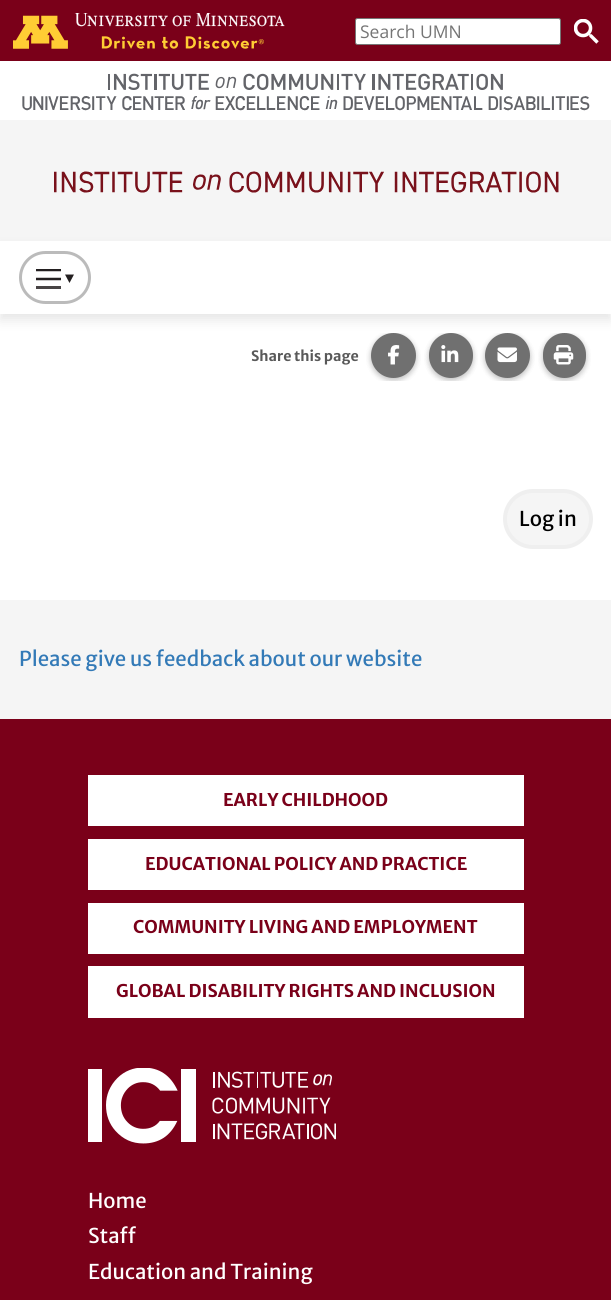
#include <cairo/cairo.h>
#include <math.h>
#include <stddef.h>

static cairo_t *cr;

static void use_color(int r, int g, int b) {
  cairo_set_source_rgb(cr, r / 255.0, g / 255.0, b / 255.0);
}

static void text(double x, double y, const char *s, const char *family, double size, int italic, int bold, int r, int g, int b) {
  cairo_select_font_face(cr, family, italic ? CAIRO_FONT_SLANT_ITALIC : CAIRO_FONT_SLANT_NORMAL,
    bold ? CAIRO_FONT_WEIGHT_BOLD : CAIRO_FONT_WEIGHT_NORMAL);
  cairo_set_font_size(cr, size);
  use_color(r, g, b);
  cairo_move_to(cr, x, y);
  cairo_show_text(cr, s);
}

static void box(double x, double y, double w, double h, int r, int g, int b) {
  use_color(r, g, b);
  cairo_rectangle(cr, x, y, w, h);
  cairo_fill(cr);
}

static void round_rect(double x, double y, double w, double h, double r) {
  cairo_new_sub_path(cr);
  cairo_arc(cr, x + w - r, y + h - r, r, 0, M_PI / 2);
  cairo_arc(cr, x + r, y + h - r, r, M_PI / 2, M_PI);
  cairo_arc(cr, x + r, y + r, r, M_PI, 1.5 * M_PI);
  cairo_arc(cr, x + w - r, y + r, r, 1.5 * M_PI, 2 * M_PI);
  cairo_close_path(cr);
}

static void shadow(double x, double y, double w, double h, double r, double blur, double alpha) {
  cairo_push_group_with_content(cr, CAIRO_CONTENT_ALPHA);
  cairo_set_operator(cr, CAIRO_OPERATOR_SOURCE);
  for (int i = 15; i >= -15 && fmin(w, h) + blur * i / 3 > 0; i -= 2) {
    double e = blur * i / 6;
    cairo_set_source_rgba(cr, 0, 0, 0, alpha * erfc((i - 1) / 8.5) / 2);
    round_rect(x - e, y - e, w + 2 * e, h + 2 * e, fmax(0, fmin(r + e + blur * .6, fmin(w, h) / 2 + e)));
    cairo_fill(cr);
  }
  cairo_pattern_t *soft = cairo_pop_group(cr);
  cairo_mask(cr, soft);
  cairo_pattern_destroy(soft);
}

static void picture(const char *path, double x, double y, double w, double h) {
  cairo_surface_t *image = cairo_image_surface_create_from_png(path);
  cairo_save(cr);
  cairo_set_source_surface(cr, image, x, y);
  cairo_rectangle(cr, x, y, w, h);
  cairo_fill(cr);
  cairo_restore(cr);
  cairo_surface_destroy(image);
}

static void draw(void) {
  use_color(255, 255, 255);
  cairo_paint(cr);
  box(0, 0, 611, 61, 122, 0, 25);
  picture("img_01.png", 13, 13, 272, 36);
  use_color(255, 255, 255);
  round_rect(355.5, 18.5, 205, 26, 2);
  cairo_fill_preserve(cr);
  use_color(118, 118, 118);
  cairo_set_line_width(cr, 1);
  cairo_stroke(cr);
  picture("img_02.png", 574, 19, 25, 25);
  picture("img_03.png", 108, 73, 395, 17);
  picture("img_04.png", 22, 96, 568, 15);
  box(0, 120, 611, 121, 245, 245, 245);
  picture("img_05.png", 54, 171, 505, 22);
  cairo_save(cr);
  cairo_rectangle(cr, 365, 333, 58, 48);
  cairo_clip(cr);
  use_color(0, 0, 0);
  shadow(371, 335, 45, 45, 22.5, 3, 0.12);
  shadow(371, 335, 45, 45, 22.5, 3, 0.16);
  cairo_restore(cr);
  use_color(112, 112, 112);
  cairo_arc(cr, 393.5, 355.5, 22.5, 0, 2 * M_PI);
  cairo_fill(cr);
  cairo_save(cr);
  cairo_rectangle(cr, 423, 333, 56, 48);
  cairo_clip(cr);
  use_color(0, 0, 0);
  shadow(429, 335, 44, 45, 22, 3, 0.12);
  shadow(429, 335, 44, 45, 22, 3, 0.16);
  cairo_restore(cr);
  round_rect(429, 333, 44, 45, 22);
  cairo_fill(cr);
  cairo_save(cr);
  cairo_rectangle(cr, 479, 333, 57, 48);
  cairo_clip(cr);
  use_color(0, 0, 0);
  shadow(485, 335, 45, 45, 22.5, 3, 0.12);
  shadow(485, 335, 45, 45, 22.5, 3, 0.16);
  cairo_restore(cr);
  cairo_arc(cr, 507.5, 355.5, 22.5, 0, 2 * M_PI);
  cairo_fill(cr);
  cairo_save(cr);
  cairo_rectangle(cr, 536, 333, 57, 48);
  cairo_clip(cr);
  use_color(0, 0, 0);
  shadow(543, 335, 43, 45, 21.5, 3, 0.12);
  shadow(543, 335, 43, 45, 21.5, 3, 0.16);
  cairo_restore(cr);
  round_rect(543, 333, 43, 45, 21.5);
  cairo_fill(cr);
  use_color(0, 0, 0);
  shadow(0, 248, 611, 72, 0, 6, 0.1);
  box(0, 241, 611, 73, 255, 255, 255);
  round_rect(20.5, 252.5, 69, 50, 25);
  use_color(187, 187, 187);
  cairo_set_line_width(cr, 3);
  cairo_stroke(cr);
  cairo_save(cr);
  cairo_rectangle(cr, 36, 269, 38, 20);
  cairo_clip(cr);
  cairo_new_path(cr);
  cairo_move_to(cr, 36, 270);
  cairo_line_to(cr, 61, 270);
  use_color(35, 31, 32);
  cairo_set_line_width(cr, 2.5);
  cairo_stroke(cr);
  cairo_restore(cr);
  cairo_new_path(cr);
  cairo_move_to(cr, 36, 279);
  cairo_line_to(cr, 61, 279);
  use_color(35, 31, 32);
  cairo_set_line_width(cr, 2.5);
  cairo_stroke(cr);
  cairo_new_path(cr);
  cairo_move_to(cr, 69.5, 283);
  cairo_line_to(cr, 74, 274.5);
  cairo_line_to(cr, 65, 274.5);
  cairo_close_path(cr);
  cairo_fill(cr);
  box(36, 286, 25, 3, 72, 68, 69);
  picture("img_06.png", 388, 345, 12, 20);
  picture("img_07.png", 441, 345, 18, 18);
  picture("img_08.png", 497, 347, 20, 16);
  picture("img_09.png", 553, 345, 21, 20);
  use_color(245, 245, 245);
  round_rect(505, 491, 86, 56, 28);
  cairo_fill_preserve(cr);
  use_color(239, 239, 239);
  cairo_set_line_width(cr, 4);
  cairo_stroke(cr);
  box(0, 600, 611, 119, 245, 245, 245);
  box(0, 719, 611, 581, 122, 0, 25);
  box(88, 775, 436, 51, 255, 255, 255);
  box(88, 839, 436, 51, 255, 255, 255);
  box(88, 903, 436, 51, 255, 255, 255);
  box(88, 966, 436, 52, 255, 255, 255);
  picture("img_10.png", 88, 1068, 248, 76);
  text(360, 38, "Search UMN", "Open Sans", 17.5, 0, 0, 117, 117, 117);
  text(251, 361, "Share this page", "Merriweather Sans", 14.25, 0, 1, 89, 89, 89);
  text(519, 526, "Log in", "Merriweather Sans", 20.4, 0, 0, 0, 0, 0);
  text(19, 666, "Please give us feedback about our website", "Merriweather Sans", 20.4, 0, 0, 51, 122, 183);
  text(223, 806, "EARLY CHILDHOOD", "Merriweather Sans", 17.5, 0, 1, 122, 0, 25);
  text(145, 870, "EDUCATIONAL POLICY AND PRACTICE", "Merriweather Sans", 17.5, 0, 1, 122, 0, 25);
  text(133, 933, "COMMUNITY LIVING AND EMPLOYMENT", "Merriweather Sans", 17.5, 0, 1, 122, 0, 25);
  text(116, 997, "GLOBAL DISABILITY RIGHTS AND INCLUSION", "Merriweather Sans", 17.5, 0, 1, 122, 0, 25);
  text(88, 1208, "Home", "Merriweather Sans", 20.4, 0, 0, 255, 255, 255);
  text(88, 1243, "Staff", "Merriweather Sans", 20.4, 0, 0, 255, 255, 255);
  text(88, 1279, "Education and Training", "Merriweather Sans", 20.4, 0, 0, 255, 255, 255);
}

int main(void) {
  cairo_surface_t *surface = cairo_image_surface_create(CAIRO_FORMAT_RGB24, 611, 1300);
  cr = cairo_create(surface);
  cairo_font_options_t *options = cairo_font_options_create();
  cairo_font_options_set_hint_metrics(options, CAIRO_HINT_METRICS_OFF);
  cairo_font_options_set_hint_style(options, CAIRO_HINT_STYLE_NONE);
  cairo_set_font_options(cr, options);
  cairo_set_miter_limit(cr, 4);
  draw();
  cairo_surface_write_to_png(surface, "out.png");
  cairo_font_options_destroy(options);
  cairo_destroy(cr);
  cairo_surface_destroy(surface);
  return 0;
}
